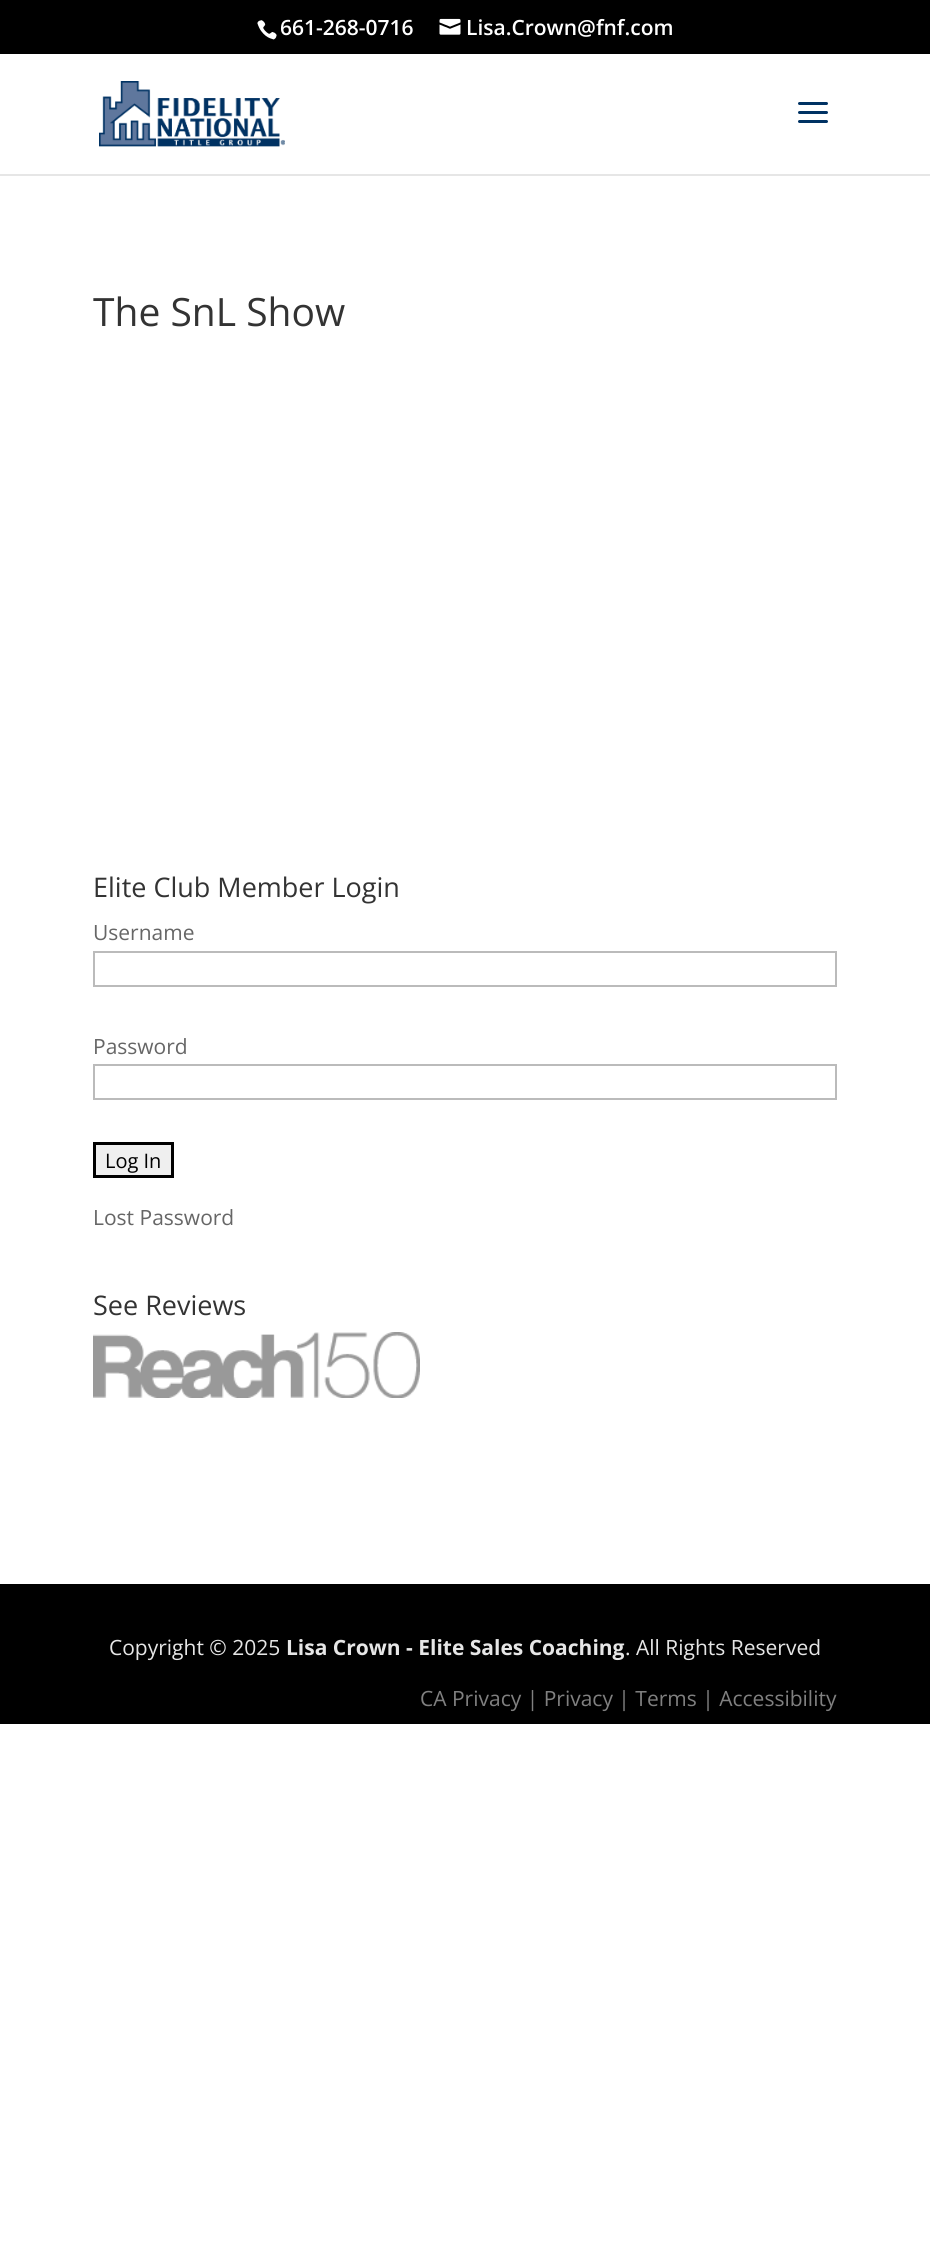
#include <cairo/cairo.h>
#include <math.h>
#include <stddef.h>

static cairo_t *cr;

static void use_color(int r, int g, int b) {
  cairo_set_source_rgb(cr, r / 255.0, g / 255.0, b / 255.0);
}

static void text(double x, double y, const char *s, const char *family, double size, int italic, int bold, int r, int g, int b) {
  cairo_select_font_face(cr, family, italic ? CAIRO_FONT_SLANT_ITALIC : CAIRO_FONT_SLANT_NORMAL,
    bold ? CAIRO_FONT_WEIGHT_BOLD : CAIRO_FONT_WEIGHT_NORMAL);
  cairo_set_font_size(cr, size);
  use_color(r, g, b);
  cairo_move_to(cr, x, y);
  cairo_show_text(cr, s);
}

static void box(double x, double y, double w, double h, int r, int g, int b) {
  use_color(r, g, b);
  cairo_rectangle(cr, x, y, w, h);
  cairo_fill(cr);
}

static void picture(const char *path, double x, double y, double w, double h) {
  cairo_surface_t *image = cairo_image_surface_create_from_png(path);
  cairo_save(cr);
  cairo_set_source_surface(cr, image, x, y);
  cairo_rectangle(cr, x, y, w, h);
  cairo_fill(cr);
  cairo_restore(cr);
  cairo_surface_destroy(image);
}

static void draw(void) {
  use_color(255, 255, 255);
  cairo_paint(cr);
  box(0, 0, 930, 54, 0, 0, 0);
  picture("img_01.png", 257, 20, 20, 20);
  picture("img_02.png", 439, 18, 22, 17);
  box(0, 174, 930, 2, 230, 230, 230);
  picture("img_03.png", 99, 81, 186, 66);
  picture("img_04.png", 798, 102, 30, 21);
  cairo_rectangle(cr, 94, 952, 742, 34);
  use_color(187, 187, 187);
  cairo_stroke(cr);
  cairo_rectangle(cr, 94, 1065, 742, 34);
  cairo_stroke(cr);
  use_color(239, 239, 239);
  cairo_rectangle(cr, 94.5, 1143.5, 78, 33);
  cairo_fill_preserve(cr);
  use_color(0, 0, 0);
  cairo_set_line_width(cr, 3);
  cairo_stroke(cr);
  picture("img_05.png", 93, 1332, 327, 66);
  box(0, 1584, 930, 140, 0, 0, 0);
  text(280, 35, "661-268-0716", "Open Sans SemiBold", 21, 0, 0, 255, 255, 255);
  text(466, 35, "Lisa.Crown@fnf.com", "Open Sans SemiBold", 21, 0, 0, 255, 255, 255);
  text(93, 326, "The SnL Show", "Open Sans", 39, 0, 0, 51, 51, 51);
  text(93, 897, "Elite Club Member Login", "Open Sans", 27, 0, 0, 51, 51, 51);
  text(93, 940, "Username", "Open Sans", 21, 0, 0, 102, 102, 102);
  text(93, 1054, "Password", "Open Sans", 21, 0, 0, 102, 102, 102);
  text(105, 1168, "Log In", "Open Sans", 20, 0, 0, 0, 0, 0);
  text(93, 1225, "Lost Password", "Open Sans", 21, 0, 0, 102, 102, 102);
  text(93, 1315, "See Reviews", "Open Sans", 27, 0, 0, 51, 51, 51);
  text(109, 1655, "Copyright © 2025", "Open Sans", 21, 0, 0, 230, 230, 230);
  text(286, 1655, "Lisa Crown - Elite Sales Coaching", "Open Sans", 21, 0, 1, 230, 230, 230);
  text(625, 1655, ". All Rights Reserved", "Open Sans", 21, 0, 0, 230, 230, 230);
  text(420, 1706, "CA Privacy | Privacy | Terms | Accessibility", "Open Sans", 21, 0, 0, 128, 128, 128);
}

int main(void) {
  cairo_surface_t *surface = cairo_image_surface_create(CAIRO_FORMAT_RGB24, 930, 2243);
  cr = cairo_create(surface);
  cairo_font_options_t *options = cairo_font_options_create();
  cairo_font_options_set_hint_metrics(options, CAIRO_HINT_METRICS_OFF);
  cairo_font_options_set_hint_style(options, CAIRO_HINT_STYLE_NONE);
  cairo_set_font_options(cr, options);
  cairo_set_miter_limit(cr, 4);
  draw();
  cairo_surface_write_to_png(surface, "out.png");
  cairo_font_options_destroy(options);
  cairo_destroy(cr);
  cairo_surface_destroy(surface);
  return 0;
}
